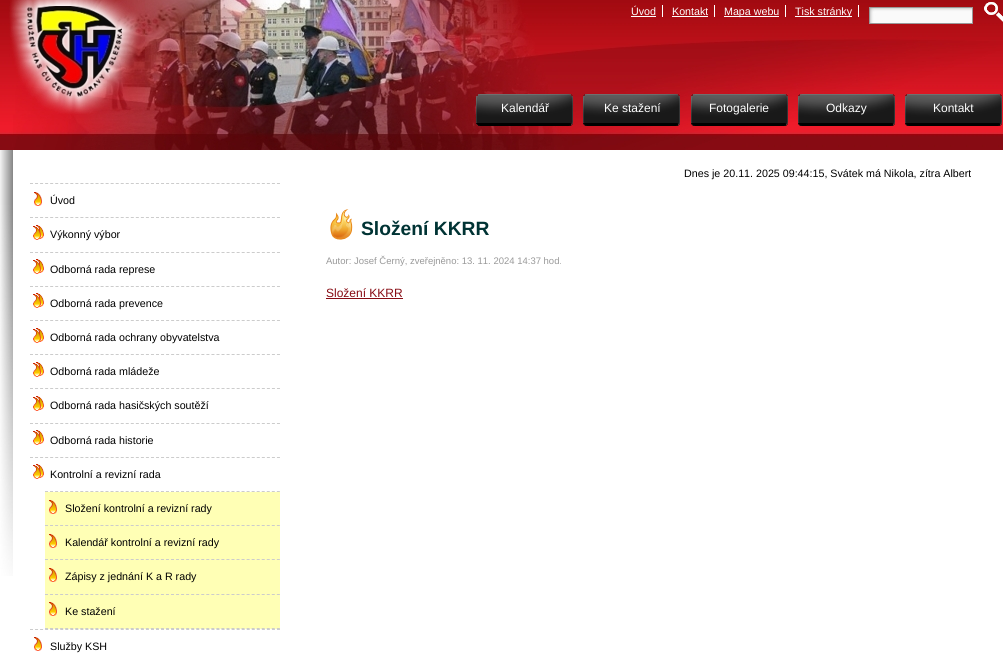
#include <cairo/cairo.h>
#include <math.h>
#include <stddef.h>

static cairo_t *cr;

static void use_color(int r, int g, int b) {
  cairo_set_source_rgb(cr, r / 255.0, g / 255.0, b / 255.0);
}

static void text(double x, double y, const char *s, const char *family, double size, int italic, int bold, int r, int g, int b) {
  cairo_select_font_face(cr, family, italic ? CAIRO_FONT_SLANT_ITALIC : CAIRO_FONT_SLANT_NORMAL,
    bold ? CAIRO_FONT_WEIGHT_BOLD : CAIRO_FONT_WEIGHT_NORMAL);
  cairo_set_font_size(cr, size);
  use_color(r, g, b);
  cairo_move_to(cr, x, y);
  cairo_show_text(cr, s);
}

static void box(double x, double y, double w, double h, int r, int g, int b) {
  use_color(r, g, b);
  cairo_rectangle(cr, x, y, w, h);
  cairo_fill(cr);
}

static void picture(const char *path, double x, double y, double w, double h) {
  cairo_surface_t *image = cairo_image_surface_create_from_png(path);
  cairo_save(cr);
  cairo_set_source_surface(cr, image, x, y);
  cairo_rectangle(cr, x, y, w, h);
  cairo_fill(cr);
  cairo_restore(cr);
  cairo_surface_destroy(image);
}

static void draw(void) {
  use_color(255, 255, 255);
  cairo_paint(cr);
  picture("img_01.png", 0, 0, 1003, 150);
  picture("img_02.png", 9, 0, 136, 114);
  box(662, 5, 1, 12, 255, 255, 255);
  box(631, 16, 25, 1, 255, 255, 255);
  box(714, 5, 1, 12, 255, 255, 255);
  box(672, 16, 36, 1, 255, 255, 255);
  box(785, 5, 1, 12, 255, 255, 255);
  box(724, 16, 55, 1, 255, 255, 255);
  box(858, 5, 1, 12, 255, 255, 255);
  box(795, 16, 57, 1, 255, 255, 255);
  picture("img_03.png", 870, 8, 102, 15);
  cairo_rectangle(cr, 869.5, 7.5, 103, 16);
  use_color(153, 153, 153);
  cairo_set_line_width(cr, 1);
  cairo_stroke(cr);
  picture("img_04.png", 984, 2, 19, 20);
  picture("img_05.png", 476, 94, 97, 32);
  picture("img_06.png", 583, 94, 97, 32);
  picture("img_07.png", 691, 94, 97, 32);
  picture("img_08.png", 798, 94, 97, 32);
  picture("img_09.png", 905, 94, 97, 32);
  picture("img_10.png", 0, 150, 13, 426);
  cairo_new_path(cr);
  cairo_move_to(cr, 30, 183.5);
  cairo_line_to(cr, 280, 183.5);
  use_color(204, 204, 204);
  cairo_set_dash(cr, (double[]){3, 2.04}, 2, 0);
  cairo_stroke(cr);
  cairo_new_path(cr);
  cairo_move_to(cr, 30, 217.5);
  cairo_line_to(cr, 280, 217.5);
  cairo_stroke(cr);
  picture("img_11.png", 34, 192, 8, 14);
  cairo_new_path(cr);
  cairo_move_to(cr, 30, 252.5);
  cairo_line_to(cr, 280, 252.5);
  cairo_stroke(cr);
  picture("img_12.png", 33, 225, 11, 15);
  cairo_new_path(cr);
  cairo_move_to(cr, 30, 286.5);
  cairo_line_to(cr, 280, 286.5);
  cairo_stroke(cr);
  picture("img_12.png", 33, 259, 11, 15);
  cairo_new_path(cr);
  cairo_move_to(cr, 30, 320.5);
  cairo_line_to(cr, 280, 320.5);
  cairo_stroke(cr);
  picture("img_12.png", 33, 293, 11, 15);
  cairo_new_path(cr);
  cairo_move_to(cr, 30, 354.5);
  cairo_line_to(cr, 280, 354.5);
  cairo_stroke(cr);
  picture("img_12.png", 33, 328, 11, 15);
  cairo_new_path(cr);
  cairo_move_to(cr, 30, 388.5);
  cairo_line_to(cr, 280, 388.5);
  cairo_stroke(cr);
  picture("img_12.png", 33, 362, 11, 15);
  cairo_new_path(cr);
  cairo_move_to(cr, 30, 423.5);
  cairo_line_to(cr, 280, 423.5);
  cairo_stroke(cr);
  picture("img_12.png", 33, 396, 11, 15);
  cairo_new_path(cr);
  cairo_move_to(cr, 30, 457.5);
  cairo_line_to(cr, 280, 457.5);
  cairo_stroke(cr);
  picture("img_12.png", 33, 430, 11, 15);
  cairo_new_path(cr);
  cairo_move_to(cr, 30, 629.5);
  cairo_line_to(cr, 280, 629.5);
  cairo_stroke(cr);
  picture("img_12.png", 33, 464, 11, 15);
  cairo_new_path(cr);
  cairo_move_to(cr, 45, 491.5);
  cairo_line_to(cr, 280, 491.5);
  cairo_stroke(cr);
  box(45, 492, 235, 137, 255, 255, 181);
  cairo_new_path(cr);
  cairo_move_to(cr, 45, 525.5);
  cairo_line_to(cr, 280, 525.5);
  use_color(204, 204, 204);
  cairo_stroke(cr);
  picture("img_13.png", 49, 500, 8, 14);
  cairo_new_path(cr);
  cairo_move_to(cr, 45, 559.5);
  cairo_line_to(cr, 280, 559.5);
  cairo_stroke(cr);
  picture("img_13.png", 49, 534, 8, 14);
  cairo_new_path(cr);
  cairo_move_to(cr, 45, 594.5);
  cairo_line_to(cr, 280, 594.5);
  cairo_stroke(cr);
  picture("img_13.png", 49, 568, 8, 14);
  cairo_new_path(cr);
  cairo_move_to(cr, 45, 628.5);
  cairo_line_to(cr, 280, 628.5);
  cairo_stroke(cr);
  picture("img_13.png", 49, 602, 8, 14);
  picture("img_11.png", 34, 637, 8, 14);
  picture("img_14.png", 330, 209, 23, 31);
  box(326, 298, 77, 1, 135, 11, 19);
  text(631, 15, "Úvod", "Liberation Sans", 10.7, 0, 0, 255, 255, 255);
  text(672, 15, "Kontakt", "Liberation Sans", 10.7, 0, 0, 255, 255, 255);
  text(724, 15, "Mapa webu", "Liberation Sans", 10.7, 0, 0, 255, 255, 255);
  text(795, 15, "Tisk stránky", "Liberation Sans", 10.7, 0, 0, 255, 255, 255);
  text(501, 112, "Kalendář", "Liberation Sans", 12, 0, 0, 255, 255, 255);
  text(604, 112, "Ke stažení", "Liberation Sans", 12, 0, 0, 255, 255, 255);
  text(709, 112, "Fotogalerie", "Liberation Sans", 12, 0, 0, 255, 255, 255);
  text(826, 112, "Odkazy", "Liberation Sans", 12, 0, 0, 255, 255, 255);
  text(933, 112, "Kontakt", "Liberation Sans", 12, 0, 0, 255, 255, 255);
  text(684, 177, "Dnes je 20.11. 2025 09:44:15, Svátek má Nikola, zítra Albert", "Liberation Sans", 10.7, 0, 0, 0, 0, 0);
  text(50, 204, "Úvod", "Liberation Sans", 10.7, 0, 0, 0, 0, 0);
  text(50, 238, "Výkonný výbor", "Liberation Sans", 10.7, 0, 0, 0, 0, 0);
  text(50, 273, "Odborná rada represe", "Liberation Sans", 10.7, 0, 0, 0, 0, 0);
  text(50, 307, "Odborná rada prevence", "Liberation Sans", 10.7, 0, 0, 0, 0, 0);
  text(50, 341, "Odborná rada ochrany obyvatelstva", "Liberation Sans", 10.7, 0, 0, 0, 0, 0);
  text(50, 375, "Odborná rada mládeže", "Liberation Sans", 10.7, 0, 0, 0, 0, 0);
  text(50, 409, "Odborná rada hasičských soutěží", "Liberation Sans", 10.7, 0, 0, 0, 0, 0);
  text(50, 444, "Odborná rada historie", "Liberation Sans", 10.7, 0, 0, 0, 0, 0);
  text(50, 478, "Kontrolní a revizní rada", "Liberation Sans", 10.7, 0, 0, 0, 0, 0);
  text(65, 512, "Složení kontrolní a revizní rady", "Liberation Sans", 10.7, 0, 0, 0, 0, 0);
  text(65, 546, "Kalendář kontrolní a revizní rady", "Liberation Sans", 10.7, 0, 0, 0, 0, 0);
  text(65, 580, "Zápisy z jednání K a R rady", "Liberation Sans", 10.7, 0, 0, 0, 0, 0);
  text(65, 615, "Ke stažení", "Liberation Sans", 10.7, 0, 0, 0, 0, 0);
  text(50, 650, "Služby KSH", "Liberation Sans", 10.7, 0, 0, 0, 0, 0);
  text(361, 235, "Složení KKRR", "Liberation Sans", 19.25, 0, 1, 0, 51, 52);
  text(326, 264, "Autor: Josef Černý, zveřejněno: 13. 11. 2024 14:37 hod.", "Liberation Sans", 9.5, 0, 0, 153, 153, 153);
  text(326, 297, "Složení KKRR", "Liberation Sans", 12, 0, 0, 135, 11, 19);
}

int main(void) {
  cairo_surface_t *surface = cairo_image_surface_create(CAIRO_FORMAT_RGB24, 1003, 657);
  cr = cairo_create(surface);
  cairo_font_options_t *options = cairo_font_options_create();
  cairo_font_options_set_hint_metrics(options, CAIRO_HINT_METRICS_OFF);
  cairo_font_options_set_hint_style(options, CAIRO_HINT_STYLE_NONE);
  cairo_set_font_options(cr, options);
  cairo_set_miter_limit(cr, 4);
  draw();
  cairo_surface_write_to_png(surface, "out.png");
  cairo_font_options_destroy(options);
  cairo_destroy(cr);
  cairo_surface_destroy(surface);
  return 0;
}
